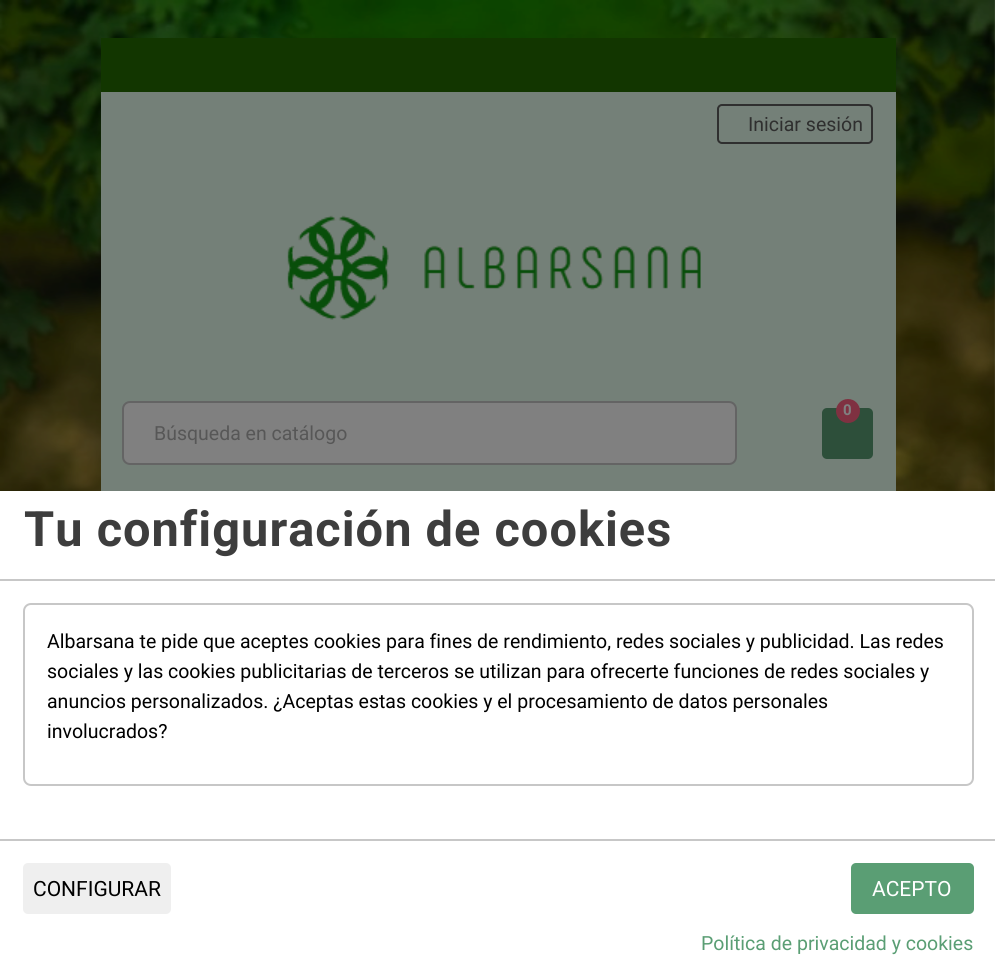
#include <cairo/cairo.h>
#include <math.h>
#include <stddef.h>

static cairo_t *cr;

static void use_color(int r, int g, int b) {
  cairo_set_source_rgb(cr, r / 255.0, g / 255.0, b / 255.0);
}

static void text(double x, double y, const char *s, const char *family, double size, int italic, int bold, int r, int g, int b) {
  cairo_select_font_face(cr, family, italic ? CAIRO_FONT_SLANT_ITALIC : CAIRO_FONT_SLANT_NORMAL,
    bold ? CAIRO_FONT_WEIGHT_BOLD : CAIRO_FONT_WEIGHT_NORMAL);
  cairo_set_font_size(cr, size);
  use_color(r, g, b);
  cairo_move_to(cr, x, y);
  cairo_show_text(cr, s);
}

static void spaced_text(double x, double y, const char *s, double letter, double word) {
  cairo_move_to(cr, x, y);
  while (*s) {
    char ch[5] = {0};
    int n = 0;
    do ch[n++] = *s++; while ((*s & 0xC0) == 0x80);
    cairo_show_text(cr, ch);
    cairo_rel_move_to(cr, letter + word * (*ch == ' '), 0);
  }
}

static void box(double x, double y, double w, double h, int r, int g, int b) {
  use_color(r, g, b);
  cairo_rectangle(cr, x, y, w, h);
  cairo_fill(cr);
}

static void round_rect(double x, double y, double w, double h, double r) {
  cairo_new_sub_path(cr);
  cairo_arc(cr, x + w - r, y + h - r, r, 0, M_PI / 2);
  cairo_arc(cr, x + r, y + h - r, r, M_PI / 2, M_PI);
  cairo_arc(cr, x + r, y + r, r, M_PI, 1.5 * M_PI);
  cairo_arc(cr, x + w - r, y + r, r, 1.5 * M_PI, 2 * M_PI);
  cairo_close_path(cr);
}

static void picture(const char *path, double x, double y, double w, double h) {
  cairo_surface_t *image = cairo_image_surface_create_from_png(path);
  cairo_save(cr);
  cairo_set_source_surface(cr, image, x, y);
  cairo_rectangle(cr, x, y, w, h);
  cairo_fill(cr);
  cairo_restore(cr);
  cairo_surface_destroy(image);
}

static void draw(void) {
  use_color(255, 255, 255);
  cairo_paint(cr);
  picture("img_01.png", 0, 0, 995, 491);
  box(101, 92, 795, 399, 116, 128, 120);
  box(101, 38, 795, 54, 18, 54, 0);
  round_rect(718, 105, 154, 38, 4);
  use_color(47, 47, 47);
  cairo_stroke(cr);
  use_color(45, 79, 58);
  round_rect(822, 408, 51, 51, 5);
  cairo_fill(cr);
  use_color(127, 49, 65);
  cairo_arc(cr, 848, 411, 12, 0, 2 * M_PI);
  cairo_fill(cr);
  use_color(128, 128, 128);
  round_rect(123, 402, 613, 62, 7);
  cairo_fill_preserve(cr);
  use_color(100, 100, 100);
  cairo_stroke(cr);
  picture("img_02.png", 287, 215, 414, 105);
  box(0, 579, 995, 2, 199, 199, 199);
  round_rect(24, 604, 949, 181, 7);
  cairo_stroke(cr);
  box(0, 839, 995, 2, 199, 199, 199);
  use_color(239, 239, 239);
  round_rect(23, 863, 148, 51, 5);
  cairo_fill(cr);
  use_color(90, 158, 116);
  round_rect(851, 863, 123, 51, 5);
  cairo_fill(cr);
  text(748, 131, "Iniciar sesión", "Roboto", 19.5, 0, 0, 47, 47, 47);
  text(843, 415, "0", "Roboto", 15, 0, 1, 128, 128, 128);
  text(154, 440, "Búsqueda en catálogo", "Roboto", 19.5, 0, 0, 87, 87, 87);
  cairo_select_font_face(cr, "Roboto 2", CAIRO_FONT_SLANT_NORMAL, CAIRO_FONT_WEIGHT_BOLD);
  cairo_set_font_size(cr, 48.75);
  use_color(61, 61, 61);
  spaced_text(24, 546, "Tu configuración de cookies", 1, 0);
  text(47, 648, "Albarsana te pide que aceptes cookies para fines de rendimiento, redes sociales y publicidad. Las redes", "Roboto", 19.5, 0, 0, 0, 0, 0);
  text(47, 678, "sociales y las cookies publicitarias de terceros se utilizan para ofrecerte funciones de redes sociales y", "Roboto", 19.5, 0, 0, 0, 0, 0);
  text(47, 708, "anuncios personalizados. ¿Aceptas estas cookies y el procesamiento de datos personales", "Roboto", 19.5, 0, 0, 0, 0, 0);
  text(47, 738, "involucrados?", "Roboto", 19.5, 0, 0, 0, 0, 0);
  text(33, 896, "CONFIGURAR", "Roboto", 21, 0, 0, 0, 0, 0);
  text(872, 896, "ACEPTO", "Roboto", 21, 0, 0, 255, 255, 255);
  text(701, 950, "Política de privacidad y cookies", "Roboto", 19.5, 0, 0, 90, 158, 116);
}

int main(void) {
  cairo_surface_t *surface = cairo_image_surface_create(CAIRO_FORMAT_RGB24, 995, 973);
  cr = cairo_create(surface);
  cairo_font_options_t *options = cairo_font_options_create();
  cairo_font_options_set_hint_metrics(options, CAIRO_HINT_METRICS_OFF);
  cairo_font_options_set_hint_style(options, CAIRO_HINT_STYLE_NONE);
  cairo_set_font_options(cr, options);
  cairo_set_miter_limit(cr, 4);
  draw();
  cairo_surface_write_to_png(surface, "out.png");
  cairo_font_options_destroy(options);
  cairo_destroy(cr);
  cairo_surface_destroy(surface);
  return 0;
}
